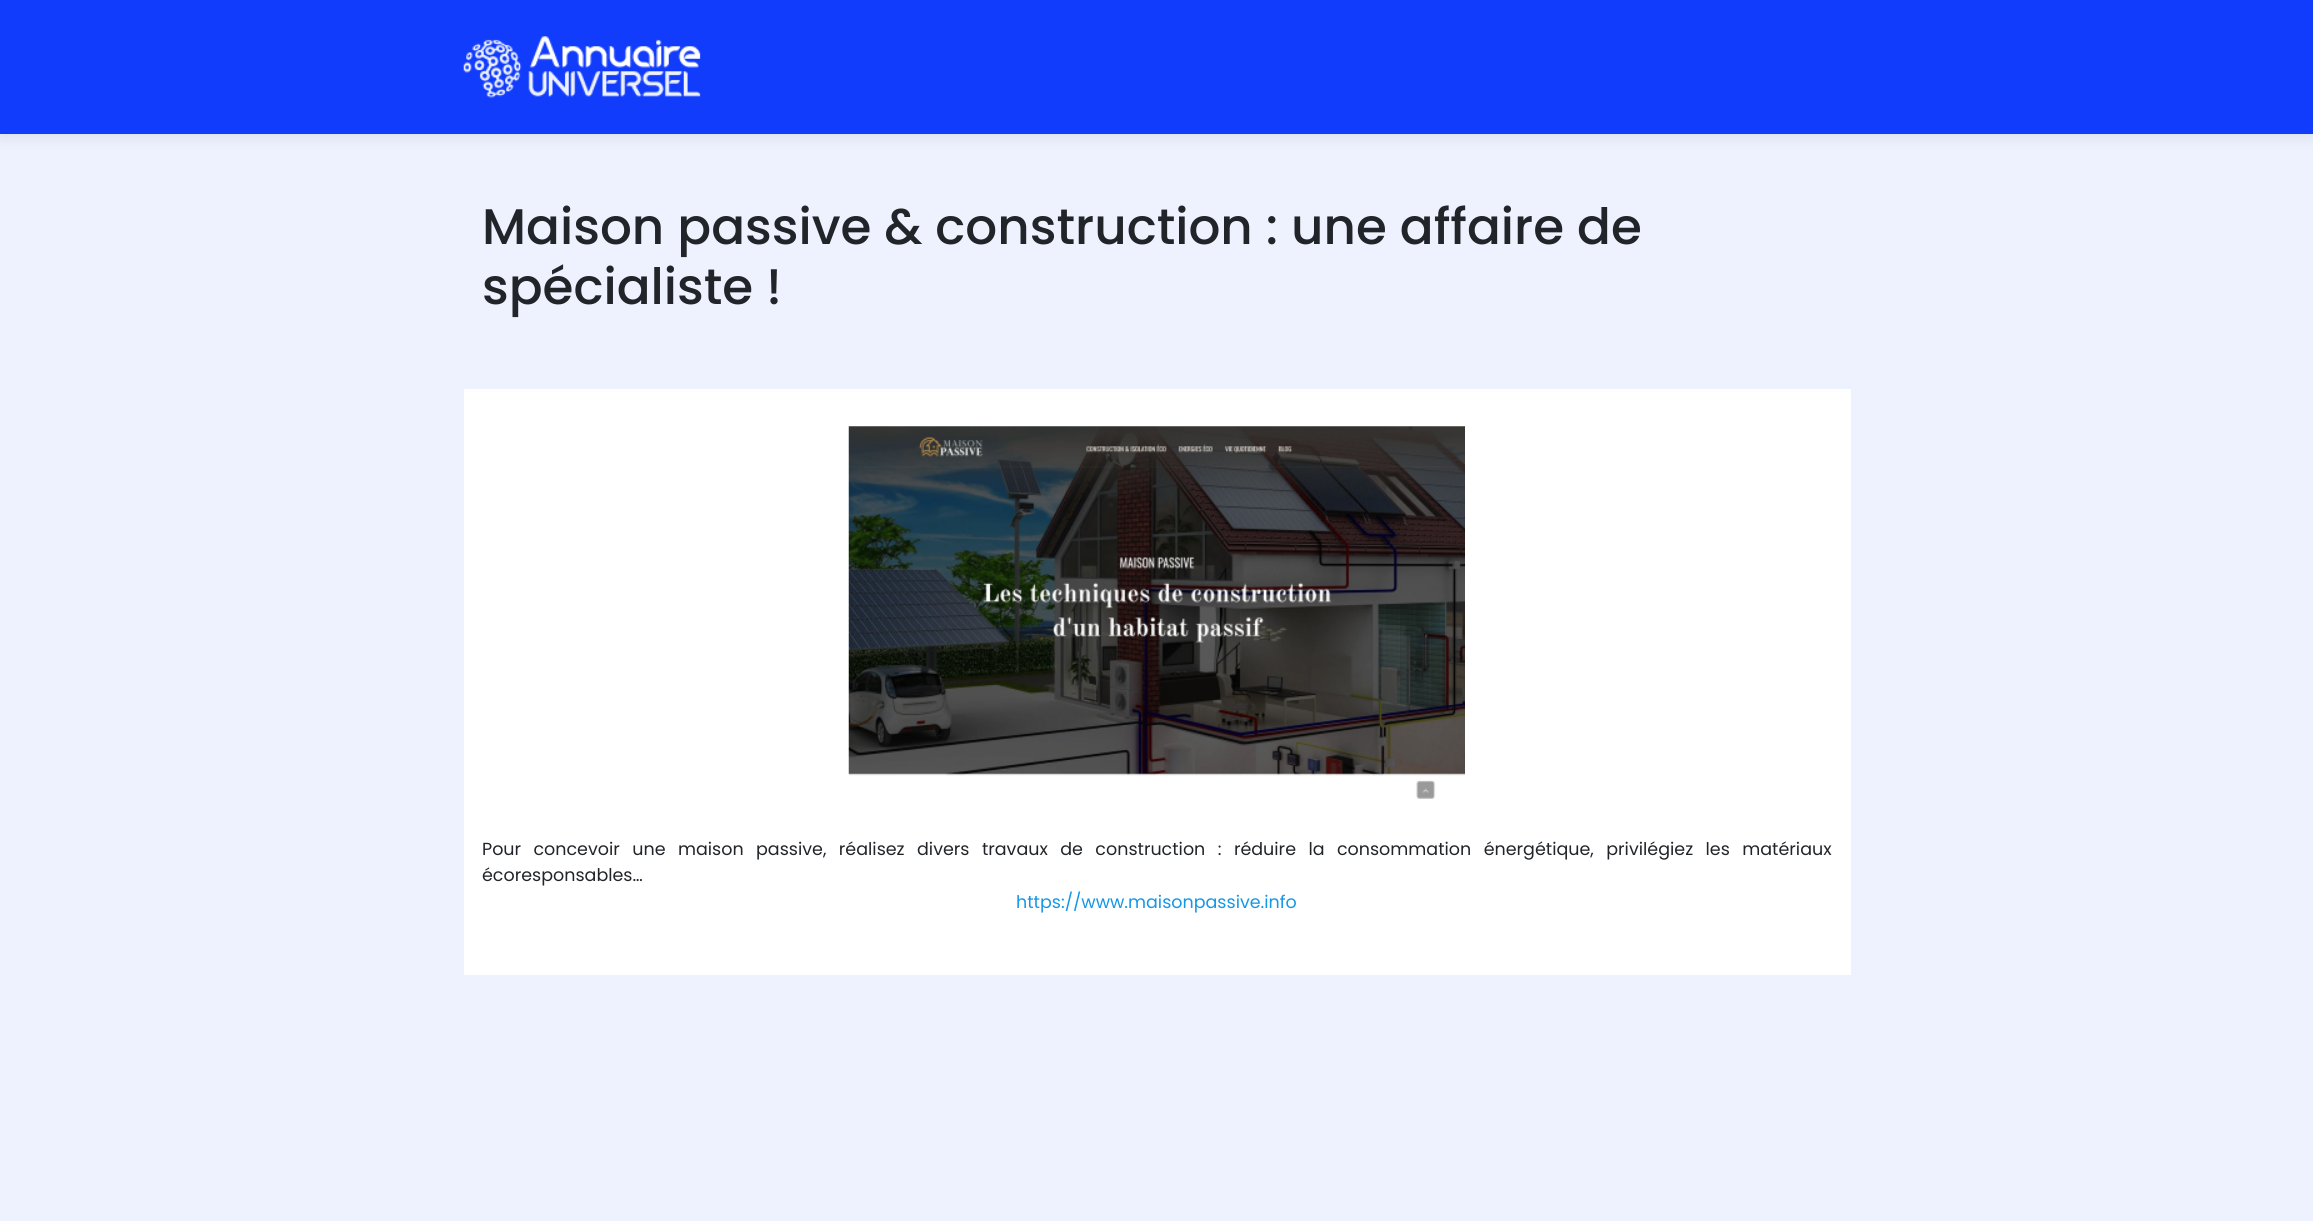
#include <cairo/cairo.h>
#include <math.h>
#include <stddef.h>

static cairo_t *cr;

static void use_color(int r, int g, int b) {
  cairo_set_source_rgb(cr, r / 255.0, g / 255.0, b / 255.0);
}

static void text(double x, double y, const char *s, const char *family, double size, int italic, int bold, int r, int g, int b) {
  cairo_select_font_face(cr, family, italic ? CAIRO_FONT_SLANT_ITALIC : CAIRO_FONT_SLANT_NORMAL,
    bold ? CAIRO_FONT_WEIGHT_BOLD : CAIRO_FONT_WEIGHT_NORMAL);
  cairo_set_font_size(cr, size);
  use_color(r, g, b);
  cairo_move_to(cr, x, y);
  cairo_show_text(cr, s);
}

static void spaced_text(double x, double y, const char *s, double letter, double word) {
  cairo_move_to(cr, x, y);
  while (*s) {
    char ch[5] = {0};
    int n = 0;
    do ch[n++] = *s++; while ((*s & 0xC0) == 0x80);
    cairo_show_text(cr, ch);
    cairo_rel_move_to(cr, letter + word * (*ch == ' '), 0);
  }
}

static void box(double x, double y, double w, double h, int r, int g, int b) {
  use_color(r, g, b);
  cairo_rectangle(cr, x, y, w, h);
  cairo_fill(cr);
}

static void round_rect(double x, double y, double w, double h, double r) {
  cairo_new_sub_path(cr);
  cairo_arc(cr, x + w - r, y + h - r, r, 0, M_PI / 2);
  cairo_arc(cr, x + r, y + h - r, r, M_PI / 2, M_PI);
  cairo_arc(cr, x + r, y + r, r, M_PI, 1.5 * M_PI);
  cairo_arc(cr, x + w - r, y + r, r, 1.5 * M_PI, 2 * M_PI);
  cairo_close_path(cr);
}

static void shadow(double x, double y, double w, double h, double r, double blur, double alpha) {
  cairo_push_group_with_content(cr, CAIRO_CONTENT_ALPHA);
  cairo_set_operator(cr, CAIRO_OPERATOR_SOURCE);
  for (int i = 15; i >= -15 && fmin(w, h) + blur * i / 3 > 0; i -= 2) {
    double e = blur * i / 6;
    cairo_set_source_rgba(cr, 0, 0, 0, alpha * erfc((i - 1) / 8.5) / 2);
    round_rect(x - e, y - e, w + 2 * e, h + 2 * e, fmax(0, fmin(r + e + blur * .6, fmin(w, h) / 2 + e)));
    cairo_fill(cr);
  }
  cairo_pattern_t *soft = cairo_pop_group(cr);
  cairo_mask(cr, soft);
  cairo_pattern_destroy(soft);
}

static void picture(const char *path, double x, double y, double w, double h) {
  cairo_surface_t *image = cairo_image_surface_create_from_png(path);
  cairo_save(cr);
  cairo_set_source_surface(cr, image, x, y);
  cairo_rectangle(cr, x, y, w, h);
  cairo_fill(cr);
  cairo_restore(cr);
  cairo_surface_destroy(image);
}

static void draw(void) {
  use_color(238, 242, 255);
  cairo_paint(cr);
  use_color(0, 0, 0);
  shadow(0, 3, 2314, 133, 0, 8, 0.1);
  box(0, 0, 2313, 134, 17, 60, 252);
  picture("img_01.png", 463, 36, 238, 62);
  box(464, 389, 1387, 586, 255, 255, 255);
  picture("img_02.png", 848, 426, 617, 373);
  text(482, 244, "Maison passive & construction : une affaire de", "Poppins Medium", 50, 0, 0, 33, 37, 41);
  text(482, 304, "spécialiste !", "Poppins Medium", 50, 0, 0, 33, 37, 41);
  cairo_select_font_face(cr, "Poppins", CAIRO_FONT_SLANT_NORMAL, CAIRO_FONT_WEIGHT_NORMAL);
  cairo_set_font_size(cr, 17.5);
  spaced_text(482, 855, "Pour concevoir une maison passive, réalisez divers travaux de construction : réduire la consommation énergétique, privilégiez les matériaux", 0, 7.75);
  text(482, 881, "écoresponsables…", "Poppins", 17.5, 0, 0, 33, 37, 41);
  text(1016, 908, "https://www.maisonpassive.info", "Poppins", 17.5, 0, 0, 21, 151, 229);
}

int main(void) {
  cairo_surface_t *surface = cairo_image_surface_create(CAIRO_FORMAT_RGB24, 2313, 1221);
  cr = cairo_create(surface);
  cairo_font_options_t *options = cairo_font_options_create();
  cairo_font_options_set_hint_metrics(options, CAIRO_HINT_METRICS_OFF);
  cairo_font_options_set_hint_style(options, CAIRO_HINT_STYLE_NONE);
  cairo_set_font_options(cr, options);
  cairo_set_miter_limit(cr, 4);
  draw();
  cairo_surface_write_to_png(surface, "out.png");
  cairo_font_options_destroy(options);
  cairo_destroy(cr);
  cairo_surface_destroy(surface);
  return 0;
}
